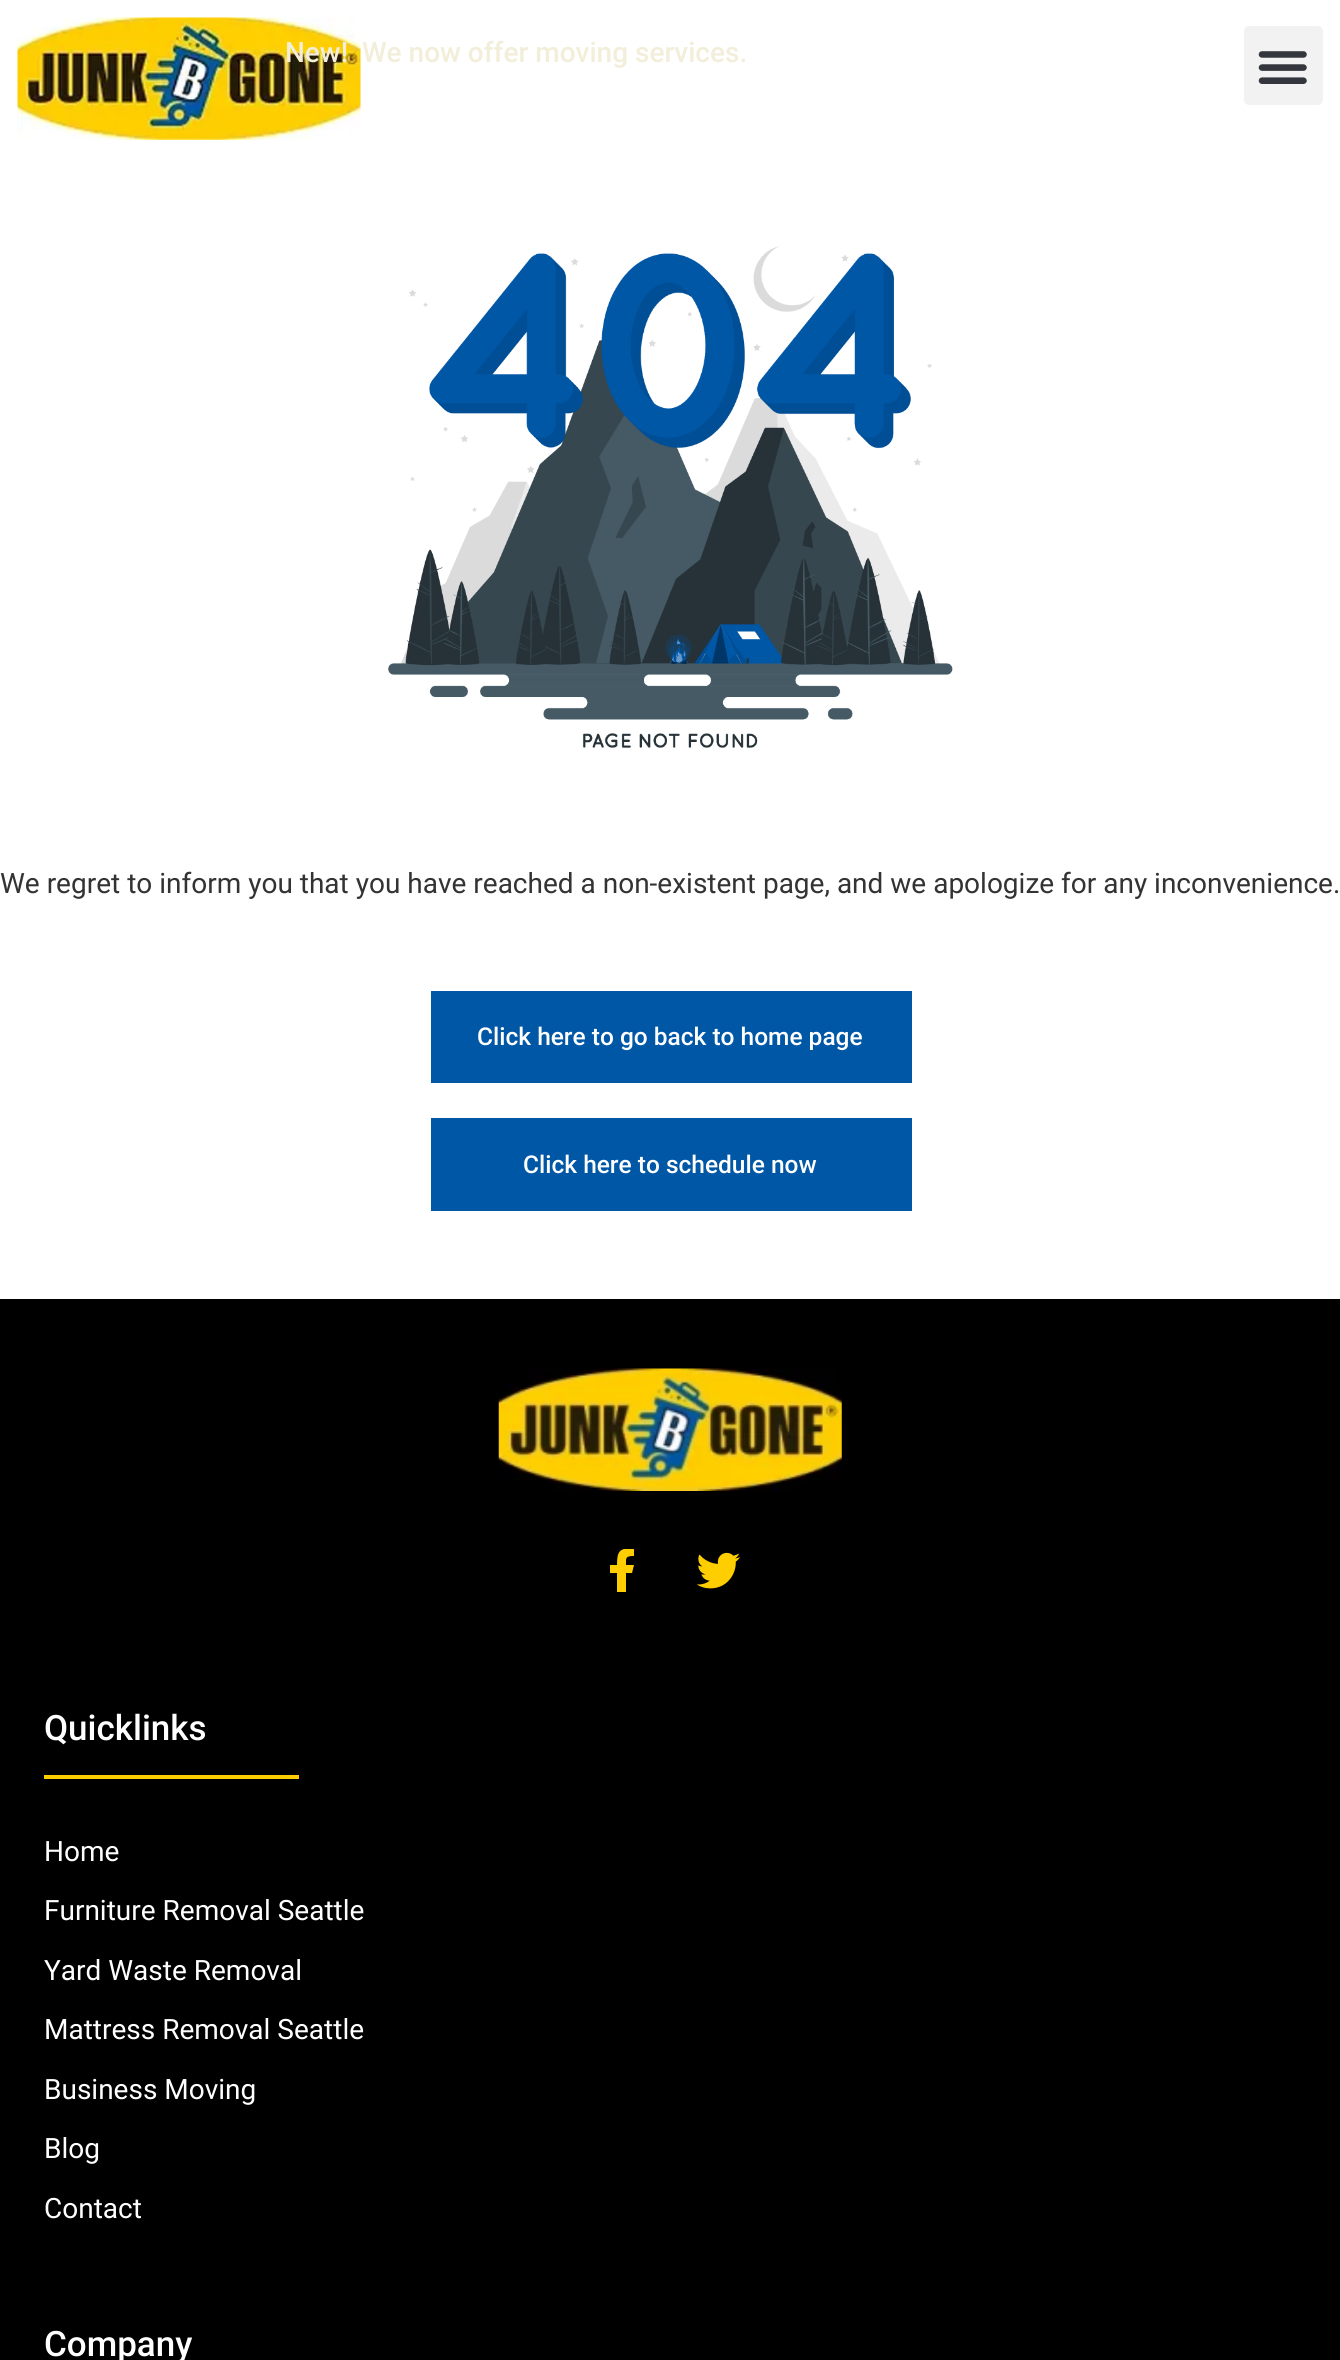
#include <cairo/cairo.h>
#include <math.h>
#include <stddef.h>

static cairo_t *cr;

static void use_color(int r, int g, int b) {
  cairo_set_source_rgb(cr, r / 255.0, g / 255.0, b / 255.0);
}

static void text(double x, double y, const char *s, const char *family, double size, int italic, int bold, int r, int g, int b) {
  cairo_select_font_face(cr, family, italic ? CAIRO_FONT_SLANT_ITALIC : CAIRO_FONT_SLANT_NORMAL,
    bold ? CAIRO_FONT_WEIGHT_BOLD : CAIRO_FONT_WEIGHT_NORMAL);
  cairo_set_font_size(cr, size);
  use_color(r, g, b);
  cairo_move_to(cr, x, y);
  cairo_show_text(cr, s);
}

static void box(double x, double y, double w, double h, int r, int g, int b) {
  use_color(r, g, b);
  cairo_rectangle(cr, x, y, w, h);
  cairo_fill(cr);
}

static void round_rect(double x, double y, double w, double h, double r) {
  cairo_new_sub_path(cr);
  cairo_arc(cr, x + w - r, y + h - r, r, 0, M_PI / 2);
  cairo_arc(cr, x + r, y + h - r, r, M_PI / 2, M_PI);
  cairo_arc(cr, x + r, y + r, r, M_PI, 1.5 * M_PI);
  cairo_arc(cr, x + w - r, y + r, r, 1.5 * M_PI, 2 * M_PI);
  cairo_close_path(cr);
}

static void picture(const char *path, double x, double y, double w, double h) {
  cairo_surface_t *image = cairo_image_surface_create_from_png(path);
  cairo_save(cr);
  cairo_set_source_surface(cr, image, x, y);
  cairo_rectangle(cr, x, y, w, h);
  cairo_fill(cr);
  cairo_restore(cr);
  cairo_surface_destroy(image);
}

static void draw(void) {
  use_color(255, 255, 255);
  cairo_paint(cr);
  picture("img_01.png", 17, 17, 344, 123);
  use_color(242, 242, 242);
  round_rect(1244, 26, 79, 79, 5);
  cairo_fill(cr);
  picture("img_02.png", 1258, 51, 49, 33);
  picture("img_03.png", 388, 246, 565, 502);
  box(431, 991, 481, 92, 0, 87, 166);
  box(431, 1118, 481, 93, 0, 87, 166);
  box(0, 1299, 1340, 1061, 0, 0, 0);
  picture("img_04.png", 498, 1368, 344, 123);
  cairo_save(cr);
  cairo_rectangle(cr, 600, 1549, 44, 44);
  cairo_clip(cr);
  use_color(255, 206, 0);
  cairo_new_path(cr);
  cairo_move_to(cr, 632, 1573);
  cairo_line_to(cr, 634, 1565);
  cairo_line_to(cr, 626, 1565);
  cairo_curve_to(cr, 626, 1558, 625, 1556, 634, 1556);
  cairo_line_to(cr, 634, 1549);
  cairo_curve_to(cr, 619, 1547, 617, 1552, 617, 1565);
  cairo_line_to(cr, 610, 1565);
  cairo_line_to(cr, 610, 1573);
  cairo_line_to(cr, 617, 1573);
  cairo_line_to(cr, 617, 1592);
  cairo_line_to(cr, 626, 1592);
  cairo_line_to(cr, 626, 1573);
  cairo_close_path(cr);
  cairo_fill(cr);
  cairo_restore(cr);
  picture("img_05.png", 697, 1552, 43, 37);
  box(44, 1775, 255, 4, 255, 206, 0);
  text(285, 62, "New!  We now offer moving services.", "Roboto Medium", 28, 0, 0, 242, 238, 217);
  text(0, 893, "We regret to inform you that you have reached a non-existent page, and we apologize for any inconvenience.", "Roboto", 28, 0, 0, 51, 51, 51);
  text(477, 1045, "Click here to go back to home page", "Roboto Medium", 24.5, 0, 0, 255, 255, 255);
  text(523, 1173, "Click here to schedule now", "Roboto Medium", 24.5, 0, 0, 255, 255, 255);
  text(44, 1740, "Quicklinks", "Roboto Medium", 35, 0, 0, 255, 255, 255);
  text(44, 1861, "Home", "Roboto", 28, 0, 0, 255, 255, 255);
  text(44, 1920, "Furniture Removal Seattle", "Roboto", 28, 0, 0, 255, 255, 255);
  text(44, 1980, "Yard Waste Removal", "Roboto", 28, 0, 0, 255, 255, 255);
  text(44, 2039, "Mattress Removal Seattle", "Roboto", 28, 0, 0, 255, 255, 255);
  text(44, 2099, "Business Moving", "Roboto", 28, 0, 0, 255, 255, 255);
  text(44, 2158, "Blog", "Roboto", 28, 0, 0, 255, 255, 255);
  text(44, 2218, "Contact", "Roboto", 28, 0, 0, 255, 255, 255);
  text(44, 2356, "Company", "Roboto Medium", 35, 0, 0, 255, 255, 255);
}

int main(void) {
  cairo_surface_t *surface = cairo_image_surface_create(CAIRO_FORMAT_RGB24, 1340, 2360);
  cr = cairo_create(surface);
  cairo_font_options_t *options = cairo_font_options_create();
  cairo_font_options_set_hint_metrics(options, CAIRO_HINT_METRICS_OFF);
  cairo_font_options_set_hint_style(options, CAIRO_HINT_STYLE_NONE);
  cairo_set_font_options(cr, options);
  cairo_set_miter_limit(cr, 4);
  draw();
  cairo_surface_write_to_png(surface, "out.png");
  cairo_font_options_destroy(options);
  cairo_destroy(cr);
  cairo_surface_destroy(surface);
  return 0;
}
